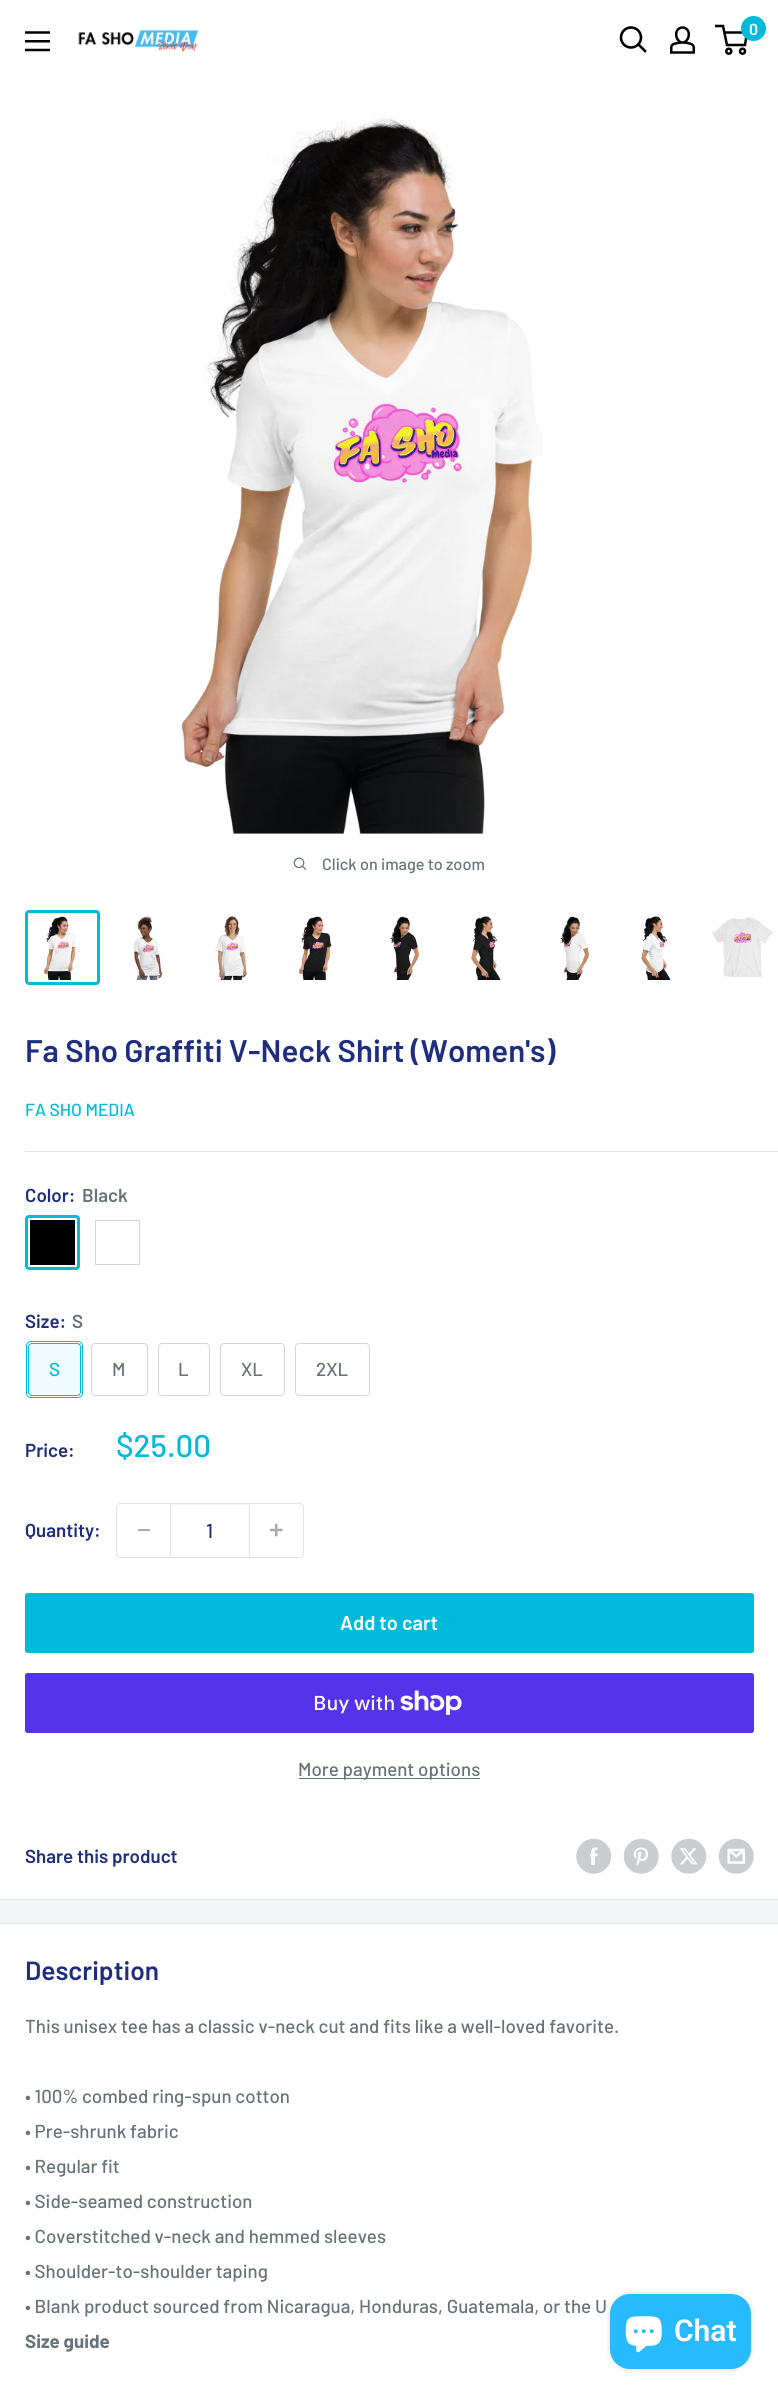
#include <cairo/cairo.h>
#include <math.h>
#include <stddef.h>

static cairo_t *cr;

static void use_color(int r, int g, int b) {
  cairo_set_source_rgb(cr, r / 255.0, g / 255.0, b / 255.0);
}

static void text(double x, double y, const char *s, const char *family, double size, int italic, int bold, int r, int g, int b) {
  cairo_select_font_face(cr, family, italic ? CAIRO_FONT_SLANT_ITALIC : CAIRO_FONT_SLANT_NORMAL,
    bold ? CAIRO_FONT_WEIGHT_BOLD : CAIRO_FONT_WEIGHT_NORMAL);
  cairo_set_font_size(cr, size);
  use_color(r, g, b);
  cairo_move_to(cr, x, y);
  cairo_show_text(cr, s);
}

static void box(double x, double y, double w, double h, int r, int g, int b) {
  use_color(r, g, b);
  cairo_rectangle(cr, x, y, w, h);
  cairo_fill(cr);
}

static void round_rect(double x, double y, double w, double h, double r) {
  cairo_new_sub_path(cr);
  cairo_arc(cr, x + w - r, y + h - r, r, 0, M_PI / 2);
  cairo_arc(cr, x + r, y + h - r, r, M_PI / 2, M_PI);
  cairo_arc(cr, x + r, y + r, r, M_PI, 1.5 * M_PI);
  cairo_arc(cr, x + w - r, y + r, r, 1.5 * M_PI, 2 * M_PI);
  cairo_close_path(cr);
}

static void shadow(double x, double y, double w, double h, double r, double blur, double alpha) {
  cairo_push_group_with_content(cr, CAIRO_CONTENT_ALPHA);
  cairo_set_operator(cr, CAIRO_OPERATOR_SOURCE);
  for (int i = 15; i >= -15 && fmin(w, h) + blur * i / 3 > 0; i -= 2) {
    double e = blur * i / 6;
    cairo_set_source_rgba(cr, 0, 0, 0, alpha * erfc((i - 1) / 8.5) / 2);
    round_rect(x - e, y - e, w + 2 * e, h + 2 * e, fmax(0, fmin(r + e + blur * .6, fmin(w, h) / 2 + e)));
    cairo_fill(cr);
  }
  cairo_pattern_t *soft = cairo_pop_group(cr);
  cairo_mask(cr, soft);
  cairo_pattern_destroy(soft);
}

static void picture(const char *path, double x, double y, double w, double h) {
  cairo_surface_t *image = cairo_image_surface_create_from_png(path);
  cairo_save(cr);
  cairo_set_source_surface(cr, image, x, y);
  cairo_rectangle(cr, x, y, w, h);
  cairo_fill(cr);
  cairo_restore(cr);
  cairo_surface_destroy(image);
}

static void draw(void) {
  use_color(243, 245, 246);
  cairo_paint(cr);
  box(0, 0, 778, 1025, 255, 255, 255);
  picture("img_01.png", 25, 31, 25, 21);
  picture("img_02.png", 78, 29, 121, 23);
  cairo_new_path(cr);
  cairo_move_to(cr, 645, 51);
  cairo_line_to(cr, 638.5, 44.5);
  use_color(0, 0, 0);
  cairo_set_line_width(cr, 2.6);
  cairo_set_line_cap(cr, CAIRO_LINE_CAP_SQUARE);
  cairo_stroke(cr);
  cairo_arc(cr, 631, 37.5, 10, 0, 2 * M_PI);
  cairo_set_line_cap(cr, CAIRO_LINE_CAP_BUTT);
  cairo_stroke(cr);
  picture("img_03.png", 670, 26, 25, 28);
  cairo_arc(cr, 728.8, 51.2, 2.5, 0, 2 * M_PI);
  cairo_set_line_width(cr, 2.5);
  cairo_stroke(cr);
  cairo_arc(cr, 742.5, 51.2, 2.5, 0, 2 * M_PI);
  cairo_stroke(cr);
  cairo_new_path(cr);
  cairo_move_to(cr, 724, 32.5);
  cairo_line_to(cr, 747, 32.5);
  cairo_line_to(cr, 745, 45);
  cairo_line_to(cr, 727, 45);
  cairo_line_to(cr, 723, 26);
  cairo_line_to(cr, 715, 26);
  cairo_stroke(cr);
  use_color(0, 186, 219);
  cairo_arc(cr, 753.5, 28.5, 12.5, 0, 2 * M_PI);
  cairo_fill(cr);
  picture("img_04.png", 180, 115, 363, 719);
  picture("img_05.png", 293, 857, 14, 13);
  round_rect(26.5, 911.5, 72, 72, 2.5);
  cairo_set_line_width(cr, 3);
  cairo_stroke(cr);
  picture("img_06.png", 43, 916, 33, 64);
  picture("img_07.png", 133, 915, 30, 65);
  picture("img_08.png", 215, 916, 33, 64);
  picture("img_09.png", 298, 916, 34, 64);
  picture("img_10.png", 390, 916, 30, 64);
  picture("img_11.png", 471, 916, 30, 64);
  picture("img_12.png", 560, 916, 30, 64);
  picture("img_13.png", 641, 916, 30, 64);
  picture("img_14.png", 711, 917, 62, 61);
  use_color(255, 255, 255);
  cairo_new_path(cr);
  cairo_move_to(cr, 0, 1025);
  cairo_line_to(cr, 0, 1026);
  cairo_line_to(cr, 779, 1026);
  cairo_line_to(cr, 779, 1899);
  cairo_line_to(cr, 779, 1025);
  cairo_close_path(cr);
  cairo_fill(cr);
  box(0, 1026, 778, 873, 255, 255, 255);
  box(0, 1899, 778, 1, 225, 227, 228);
  box(25, 1151, 753, 1, 225, 227, 228);
  box(30, 1220, 45, 45, 0, 0, 0);
  round_rect(26.5, 1216.5, 52, 52, 2.5);
  use_color(0, 186, 219);
  cairo_stroke(cr);
  cairo_rectangle(cr, 95.5, 1220.5, 44, 44);
  use_color(212, 214, 216);
  cairo_set_line_width(cr, 1);
  cairo_stroke(cr);
  round_rect(26.5, 1341.5, 56, 56, 4.5);
  use_color(0, 186, 219);
  cairo_stroke(cr);
  use_color(240, 251, 253);
  round_rect(28.5, 1343.5, 52, 52, 3.5);
  cairo_fill_preserve(cr);
  use_color(0, 186, 219);
  cairo_stroke(cr);
  round_rect(91.5, 1343.5, 56, 52, 3.5);
  use_color(212, 214, 216);
  cairo_stroke(cr);
  round_rect(158.5, 1343.5, 51, 52, 3.5);
  cairo_stroke(cr);
  round_rect(220.5, 1343.5, 64, 52, 3.5);
  cairo_stroke(cr);
  round_rect(295.5, 1343.5, 74, 52, 3.5);
  cairo_stroke(cr);
  round_rect(116.5, 1503.5, 187, 54, 3.5);
  use_color(225, 227, 228);
  cairo_stroke(cr);
  box(138, 1529, 12, 2, 164, 170, 175);
  box(171, 1504, 78, 1, 243, 244, 244);
  box(249, 1504, 1, 52, 225, 227, 228);
  box(170, 1504, 1, 52, 225, 227, 228);
  picture("img_15.png", 270, 1523, 13, 14);
  use_color(0, 186, 219);
  round_rect(25, 1593, 729, 60, 2.5);
  cairo_fill(cr);
  use_color(84, 51, 235);
  round_rect(25, 1673, 729, 60, 2.5);
  cairo_fill(cr);
  picture("img_16.png", 400, 1690, 62, 25);
  box(299, 1778, 181, 1, 103, 114, 121);
  picture("img_17.png", 576, 1838, 36, 36);
  picture("img_18.png", 623, 1838, 36, 36);
  picture("img_19.png", 671, 1838, 36, 36);
  picture("img_20.png", 718, 1838, 36, 36);
  box(0, 1924, 778, 471, 255, 255, 255);
  box(0, 1923, 778, 1, 225, 227, 228);
  use_color(0, 0, 0);
  shadow(610, 2294, 141, 75, 20, 3, 0.15);
  use_color(40, 186, 255);
  round_rect(610, 2294, 141, 75, 20);
  cairo_fill(cr);
  picture("img_21.png", 625, 2316, 37, 37);
  text(749, 35, "0", "Barlow SemiBold", 16, 0, 0, 255, 255, 255);
  text(322, 870, "Click on image to zoom", "Barlow Medium", 16.25, 0, 0, 103, 114, 121);
  text(25, 1062, "Fa Sho Graffiti V-Neck Shirt (Women's)", "Barlow SemiBold", 31.25, 0, 0, 30, 45, 125);
  text(25, 1116, "FA SHO MEDIA", "Barlow Medium", 17.5, 0, 0, 0, 186, 219);
  text(25, 1202, "Color:", "Barlow SemiBold", 18.75, 0, 0, 30, 45, 125);
  text(82, 1202, "Black", "Barlow SemiBold", 18.75, 0, 0, 103, 114, 121);
  text(25, 1328, "Size:", "Barlow SemiBold", 18.75, 0, 0, 30, 45, 125);
  text(72, 1328, "S", "Barlow SemiBold", 18.75, 0, 0, 103, 114, 121);
  text(49, 1376, "S", "Barlow Medium", 18.75, 0, 0, 0, 186, 219);
  text(112, 1376, "M", "Barlow Medium", 18.75, 0, 0, 103, 114, 121);
  text(178, 1376, "L", "Barlow Medium", 18.75, 0, 0, 103, 114, 121);
  text(241, 1376, "XL", "Barlow Medium", 18.75, 0, 0, 103, 114, 121);
  text(316, 1376, "2XL", "Barlow Medium", 18.75, 0, 0, 103, 114, 121);
  text(25, 1457, "Price:", "Barlow SemiBold", 18.75, 0, 0, 30, 45, 125);
  text(116, 1457, "$25.00", "Barlow Medium", 31.25, 0, 0, 0, 186, 219);
  text(25, 1537, "Quantity:", "Barlow SemiBold", 18.75, 0, 0, 30, 45, 125);
  text(206, 1538, "1", "Barlow Medium", 20, 0, 0, 30, 45, 125);
  text(340, 1630, "Add to cart", "Barlow SemiBold", 20, 0, 0, 255, 255, 255);
  text(313, 1710, "Buy with", "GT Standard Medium", 20, 0, 0, 255, 255, 255);
  text(298, 1776, "More payment options", "Barlow Medium", 18.75, 0, 0, 103, 114, 121);
  text(25, 1863, "Share this product", "Barlow SemiBold", 18.75, 0, 0, 30, 45, 125);
  text(25, 1980, "Description", "Barlow SemiBold", 26.25, 0, 0, 30, 45, 125);
  text(25, 2033, "This unisex tee has a classic v-neck cut and fits like a well-loved favorite.", "Barlow Medium", 18.75, 0, 0, 103, 114, 121);
  text(25, 2103, "• 100% combed ring-spun cotton", "Barlow Medium", 18.75, 0, 0, 103, 114, 121);
  text(25, 2138, "• Pre-shrunk fabric", "Barlow Medium", 18.75, 0, 0, 103, 114, 121);
  text(25, 2173, "• Regular fit", "Barlow Medium", 18.75, 0, 0, 103, 114, 121);
  text(25, 2208, "• Side-seamed construction", "Barlow Medium", 18.75, 0, 0, 103, 114, 121);
  text(25, 2243, "• Coverstitched v-neck and hemmed sleeves", "Barlow Medium", 18.75, 0, 0, 103, 114, 121);
  text(25, 2278, "• Shoulder-to-shoulder taping", "Barlow Medium", 18.75, 0, 0, 103, 114, 121);
  text(25, 2313, "• Blank product sourced from Nicaragua, Honduras, Guatemala, or the U", "Barlow Medium", 18.75, 0, 0, 103, 114, 121);
  text(25, 2348, "Size guide", "Barlow", 18.75, 0, 1, 103, 114, 121);
  text(674, 2341, "Chat", "Roboto SemiBold", 30, 0, 0, 255, 255, 255);
}

int main(void) {
  cairo_surface_t *surface = cairo_image_surface_create(CAIRO_FORMAT_RGB24, 778, 2395);
  cr = cairo_create(surface);
  cairo_font_options_t *options = cairo_font_options_create();
  cairo_font_options_set_hint_metrics(options, CAIRO_HINT_METRICS_OFF);
  cairo_font_options_set_hint_style(options, CAIRO_HINT_STYLE_NONE);
  cairo_set_font_options(cr, options);
  cairo_set_miter_limit(cr, 4);
  draw();
  cairo_surface_write_to_png(surface, "out.png");
  cairo_font_options_destroy(options);
  cairo_destroy(cr);
  cairo_surface_destroy(surface);
  return 0;
}
